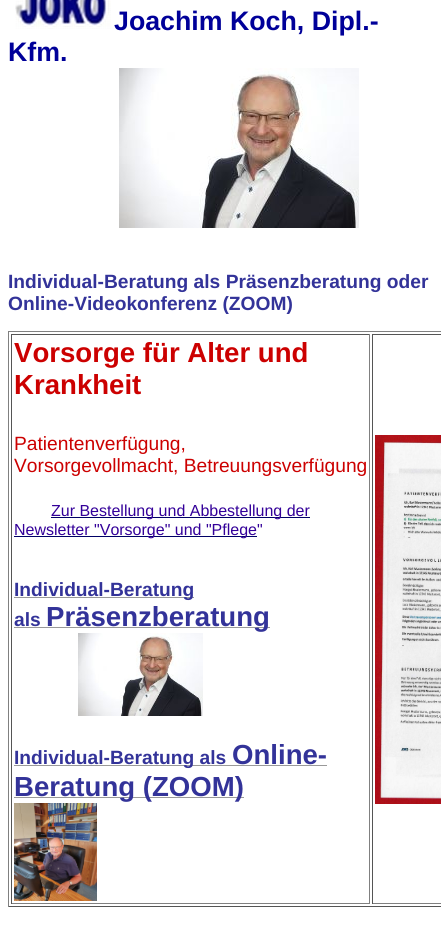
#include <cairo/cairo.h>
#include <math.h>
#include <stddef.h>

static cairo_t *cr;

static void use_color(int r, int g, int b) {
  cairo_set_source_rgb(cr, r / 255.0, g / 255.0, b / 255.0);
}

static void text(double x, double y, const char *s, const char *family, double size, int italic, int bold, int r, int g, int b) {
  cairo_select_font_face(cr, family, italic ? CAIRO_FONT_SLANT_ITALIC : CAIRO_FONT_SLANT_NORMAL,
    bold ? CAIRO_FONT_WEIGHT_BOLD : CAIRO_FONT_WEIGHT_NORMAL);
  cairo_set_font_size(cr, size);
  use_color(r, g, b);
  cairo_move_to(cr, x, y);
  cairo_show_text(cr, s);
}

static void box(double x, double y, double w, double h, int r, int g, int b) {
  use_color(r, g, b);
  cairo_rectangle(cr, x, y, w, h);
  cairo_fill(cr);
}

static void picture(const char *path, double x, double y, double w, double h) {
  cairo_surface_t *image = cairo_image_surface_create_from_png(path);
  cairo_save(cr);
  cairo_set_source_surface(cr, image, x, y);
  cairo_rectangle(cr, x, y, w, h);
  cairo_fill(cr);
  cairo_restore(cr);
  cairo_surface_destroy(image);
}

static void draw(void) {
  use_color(255, 255, 255);
  cairo_paint(cr);
  picture("img_01.png", 15, 0, 96, 29);
  picture("img_02.png", 119, 68, 240, 160);
  box(8, 331, 433, 1, 128, 128, 128);
  box(8, 906, 433, 1, 85, 85, 85);
  box(8, 331, 1, 576, 128, 128, 128);
  box(11, 334, 359, 1, 85, 85, 85);
  box(369, 334, 1, 570, 128, 128, 128);
  box(11, 903, 359, 1, 128, 128, 128);
  box(11, 334, 1, 570, 85, 85, 85);
  box(51, 517, 259, 1, 0, 0, 102);
  box(14, 536, 243, 1, 0, 0, 102);
  box(14, 597, 180, 1, 153, 153, 153);
  box(14, 627, 256, 1, 153, 153, 153);
  picture("img_03.png", 78, 633, 125, 83);
  box(14, 765, 313, 1, 153, 153, 153);
  box(14, 797, 230, 1, 153, 153, 153);
  picture("img_04.png", 14, 803, 83, 98);
  box(372, 334, 69, 1, 85, 85, 85);
  box(372, 903, 69, 1, 128, 128, 128);
  box(372, 334, 1, 570, 85, 85, 85);
  picture("img_05.png", 375, 435, 66, 369);
  text(114, 30, "Joachim Koch, Dipl.-", "Liberation Sans", 26.75, 0, 1, 0, 0, 153);
  text(8, 61, "Kfm.", "Liberation Sans", 26.75, 0, 1, 0, 0, 153);
  text(8, 288, "Individual-Beratung als Präsenzberatung oder", "Liberation Sans", 19.2, 0, 1, 51, 51, 153);
  text(8, 310, "Online-Videokonferenz (ZOOM)", "Liberation Sans", 19.2, 0, 1, 51, 51, 153);
  text(14, 362, "Vorsorge für Alter und", "Liberation Sans", 27.6, 0, 1, 204, 0, 0);
  text(14, 394, "Krankheit", "Liberation Sans", 27.6, 0, 1, 204, 0, 0);
  text(14, 450, "Patientenverfügung,", "Liberation Sans", 19.2, 0, 0, 204, 0, 0);
  text(14, 472, "Vorsorgevollmacht, Betreuungsverfügung", "Liberation Sans", 19.2, 0, 0, 204, 0, 0);
  text(51, 516, "Zur Bestellung und Abbestellung der", "Liberation Sans", 16, 0, 0, 51, 0, 153);
  text(14, 535, "Newsletter \"Vorsorge\" und \"Pflege\"", "Liberation Sans", 16, 0, 0, 51, 0, 153);
  text(14, 596, "Individual-Beratung", "Liberation Sans", 19.2, 0, 1, 51, 51, 153);
  text(14, 626, "als", "Liberation Sans", 19.2, 0, 1, 51, 51, 153);
  text(46, 626, "Präsenzberatung", "Liberation Sans", 27.6, 0, 1, 51, 51, 153);
  text(14, 764, "Individual-Beratung als", "Liberation Sans", 19.2, 0, 1, 51, 51, 153);
  text(232, 764, "Online-", "Liberation Sans", 27.6, 0, 1, 51, 51, 153);
  text(14, 796, "Beratung (ZOOM)", "Liberation Sans", 27.6, 0, 1, 51, 51, 153);
}

int main(void) {
  cairo_surface_t *surface = cairo_image_surface_create(CAIRO_FORMAT_RGB24, 441, 929);
  cr = cairo_create(surface);
  cairo_font_options_t *options = cairo_font_options_create();
  cairo_font_options_set_hint_metrics(options, CAIRO_HINT_METRICS_OFF);
  cairo_font_options_set_hint_style(options, CAIRO_HINT_STYLE_NONE);
  cairo_set_font_options(cr, options);
  cairo_set_miter_limit(cr, 4);
  draw();
  cairo_surface_write_to_png(surface, "out.png");
  cairo_font_options_destroy(options);
  cairo_destroy(cr);
  cairo_surface_destroy(surface);
  return 0;
}
